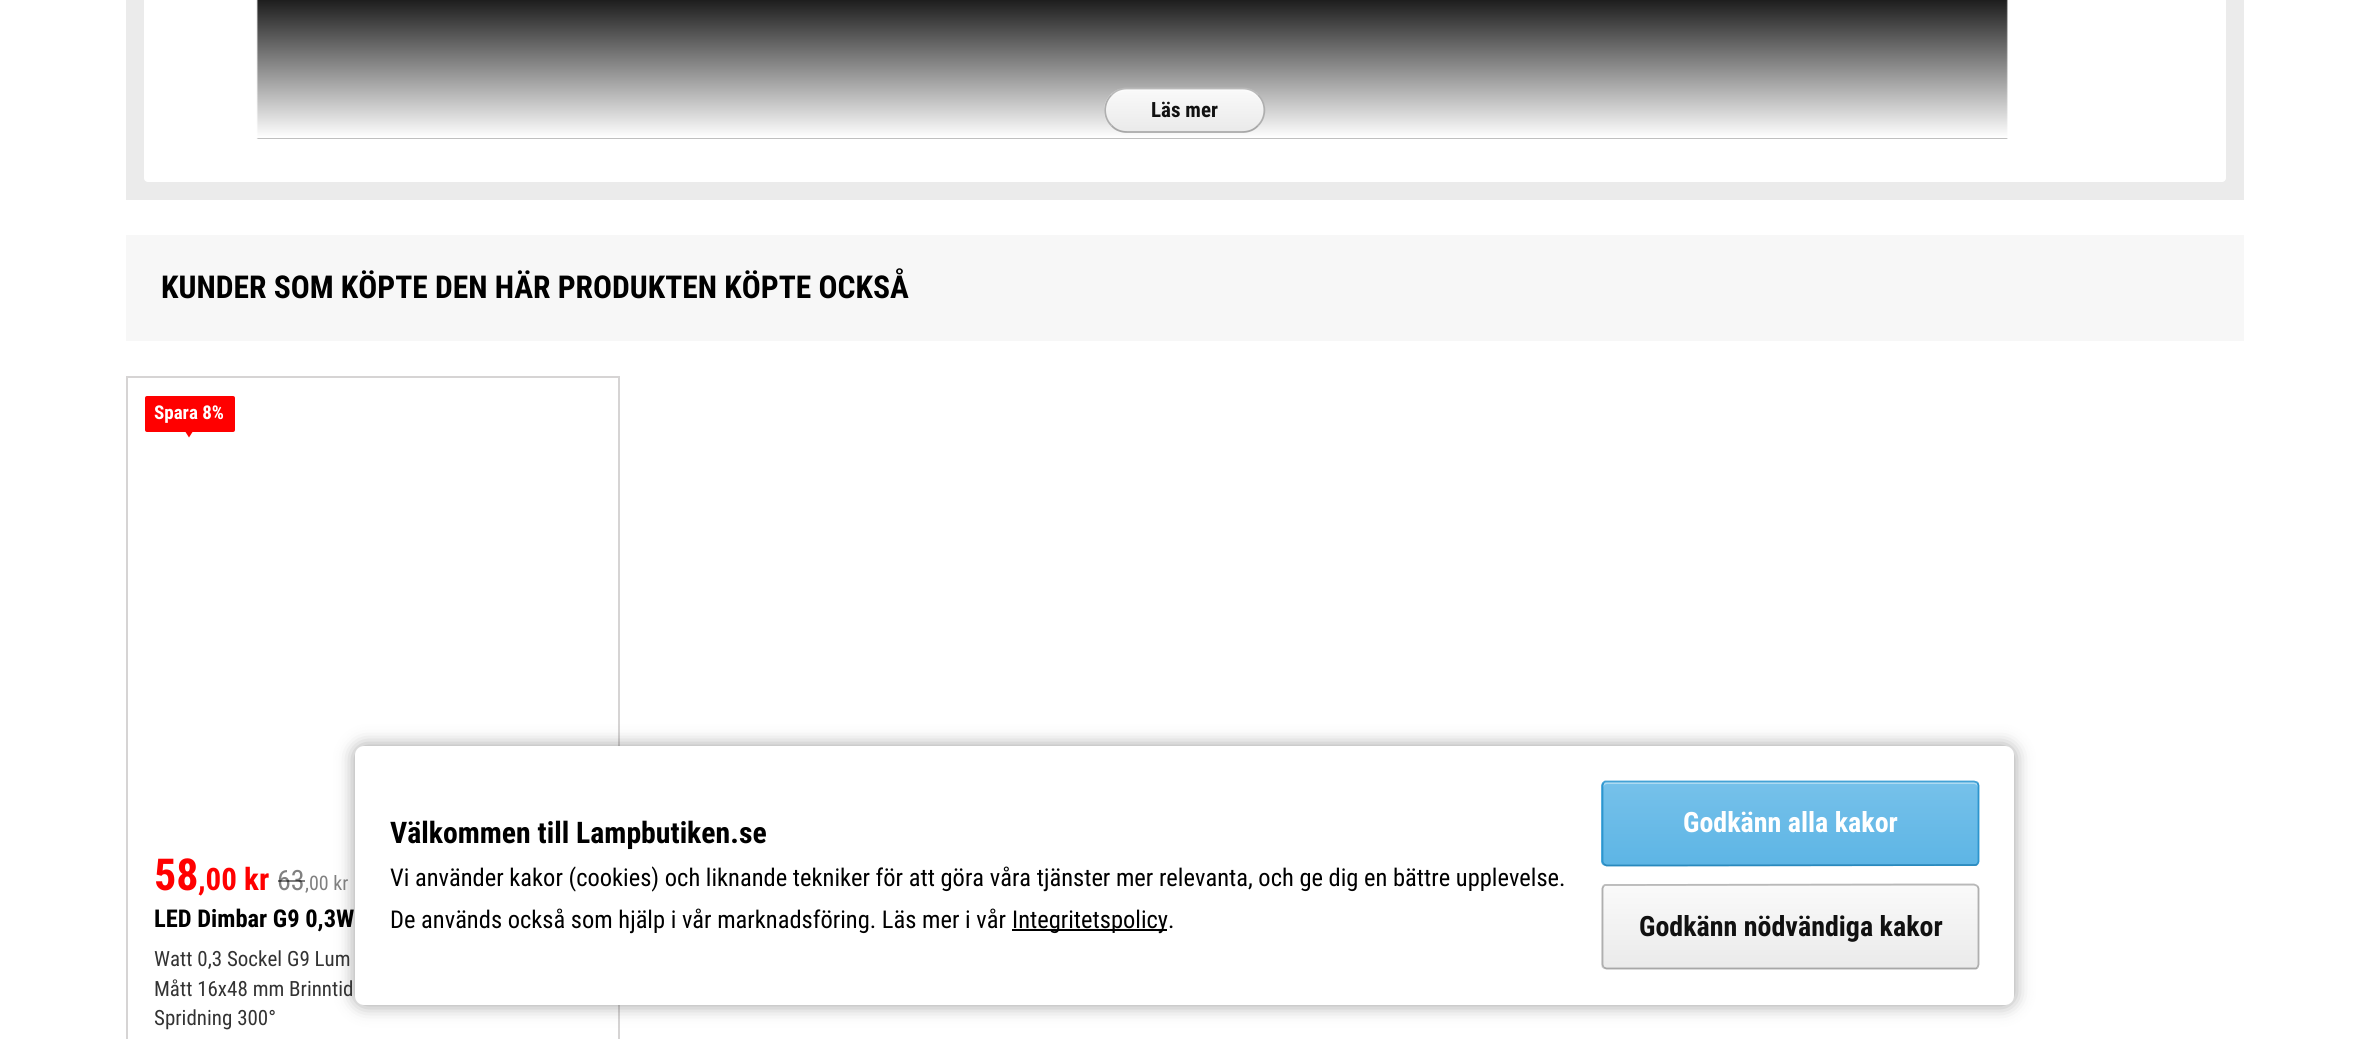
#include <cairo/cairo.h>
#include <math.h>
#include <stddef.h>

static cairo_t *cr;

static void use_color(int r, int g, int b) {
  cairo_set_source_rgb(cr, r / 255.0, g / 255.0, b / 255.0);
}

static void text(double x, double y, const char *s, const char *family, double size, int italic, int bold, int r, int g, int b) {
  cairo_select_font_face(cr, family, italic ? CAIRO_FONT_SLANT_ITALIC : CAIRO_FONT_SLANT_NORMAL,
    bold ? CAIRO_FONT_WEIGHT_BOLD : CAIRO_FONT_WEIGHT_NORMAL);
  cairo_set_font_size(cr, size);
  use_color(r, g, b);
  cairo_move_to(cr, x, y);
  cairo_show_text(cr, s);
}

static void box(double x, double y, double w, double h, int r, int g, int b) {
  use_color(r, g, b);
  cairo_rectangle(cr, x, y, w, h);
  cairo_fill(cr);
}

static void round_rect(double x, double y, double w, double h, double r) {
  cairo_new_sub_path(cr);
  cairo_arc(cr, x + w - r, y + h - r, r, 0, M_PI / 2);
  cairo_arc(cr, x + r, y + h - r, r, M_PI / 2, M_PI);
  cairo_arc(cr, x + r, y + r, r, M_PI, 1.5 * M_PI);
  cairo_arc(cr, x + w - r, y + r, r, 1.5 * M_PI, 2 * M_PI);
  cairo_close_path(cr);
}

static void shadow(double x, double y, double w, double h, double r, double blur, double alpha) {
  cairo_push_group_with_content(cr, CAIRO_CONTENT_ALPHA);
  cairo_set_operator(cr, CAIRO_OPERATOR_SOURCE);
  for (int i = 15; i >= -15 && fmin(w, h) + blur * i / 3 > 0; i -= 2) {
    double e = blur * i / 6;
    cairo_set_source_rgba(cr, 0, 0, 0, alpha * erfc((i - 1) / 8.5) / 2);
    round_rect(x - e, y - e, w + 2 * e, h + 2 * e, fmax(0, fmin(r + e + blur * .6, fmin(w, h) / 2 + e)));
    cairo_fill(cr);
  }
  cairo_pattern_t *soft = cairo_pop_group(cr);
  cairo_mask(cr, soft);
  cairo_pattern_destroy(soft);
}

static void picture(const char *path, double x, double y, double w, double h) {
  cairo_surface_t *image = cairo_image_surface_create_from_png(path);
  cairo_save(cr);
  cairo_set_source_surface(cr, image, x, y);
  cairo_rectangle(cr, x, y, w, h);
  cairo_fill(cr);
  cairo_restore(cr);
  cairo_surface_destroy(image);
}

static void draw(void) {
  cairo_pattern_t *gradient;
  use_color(255, 255, 255);
  cairo_paint(cr);
  box(126, 0, 2118, 200, 235, 235, 235);
  use_color(255, 255, 255);
  round_rect(144, -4, 2082, 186, 4);
  cairo_fill(cr);
  picture("img_01.png", 256, 0, 1752, 139);
  gradient = cairo_pattern_create_linear(1185, -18, 1185, 138);
  cairo_pattern_add_color_stop_rgba(gradient, 0, 1, 1, 1, 0);
  cairo_pattern_add_color_stop_rgba(gradient, 1, 1, 1, 1, 1);
  cairo_set_source(cr, gradient);
  cairo_pattern_destroy(gradient);
  cairo_rectangle(cr, 256, 0, 1752, 138);
  cairo_fill(cr);
  cairo_save(cr);
  round_rect(1104, 88, 161, 45, 22.5);
  cairo_clip(cr);
  gradient = cairo_pattern_create_linear(1185, 89, 1185, 131);
  cairo_pattern_add_color_stop_rgba(gradient, 0, 0.98, 0.98, 0.98, 1);
  cairo_pattern_add_color_stop_rgba(gradient, 1, 0.918, 0.918, 0.918, 1);
  cairo_set_source(cr, gradient);
  cairo_pattern_destroy(gradient);
  cairo_rectangle(cr, 1104, 89, 161, 42);
  cairo_fill(cr);
  gradient = cairo_pattern_create_linear(1185, 131, 1185, 173);
  cairo_pattern_add_color_stop_rgba(gradient, 0, 0.98, 0.98, 0.98, 1);
  cairo_pattern_add_color_stop_rgba(gradient, 1, 0.918, 0.918, 0.918, 1);
  cairo_set_source(cr, gradient);
  cairo_pattern_destroy(gradient);
  cairo_rectangle(cr, 1117, 131, 135, 2);
  cairo_fill(cr);
  cairo_restore(cr);
  cairo_set_source_rgba(cr, 1, 1, 1, 0.4);
  cairo_new_path(cr);
  cairo_move_to(cr, 1127, 91);
  cairo_line_to(cr, 1242, 91);
  cairo_curve_to(cr, 1254, 91, 1263, 100, 1264, 111);
  cairo_line_to(cr, 1264, 110);
  cairo_curve_to(cr, 1264, 98, 1255, 89, 1243, 89);
  cairo_line_to(cr, 1127, 89);
  cairo_curve_to(cr, 1115, 89, 1106, 98, 1106, 110);
  cairo_line_to(cr, 1106, 111);
  cairo_curve_to(cr, 1107, 99, 1115, 91, 1127, 91);
  cairo_close_path(cr);
  cairo_fill(cr);
  cairo_new_path(cr);
  cairo_move_to(cr, 1111.5, 95);
  cairo_curve_to(cr, 1115.5, 90.5, 1121, 88.5, 1127, 88.5);
  cairo_line_to(cr, 1242.5, 88.5);
  cairo_curve_to(cr, 1248.5, 88.5, 1254, 90.5, 1258, 95);
  use_color(185, 185, 185);
  cairo_set_line_width(cr, 1.8);
  cairo_stroke(cr);
  cairo_new_path(cr);
  cairo_move_to(cr, 1258, 95);
  cairo_curve_to(cr, 1266.5, 103, 1266.5, 117.5, 1258, 125.5);
  use_color(175, 175, 175);
  cairo_stroke(cr);
  cairo_new_path(cr);
  cairo_move_to(cr, 1258, 125.5);
  cairo_curve_to(cr, 1254, 130, 1248.5, 132, 1242.5, 132);
  cairo_line_to(cr, 1127, 132);
  cairo_curve_to(cr, 1121, 132, 1115.5, 130, 1111.5, 125.5);
  use_color(167, 167, 167);
  cairo_stroke(cr);
  cairo_new_path(cr);
  cairo_move_to(cr, 1111.5, 125.5);
  cairo_curve_to(cr, 1103, 117.5, 1103, 103, 1111.5, 95);
  use_color(175, 175, 175);
  cairo_stroke(cr);
  box(126, 235, 2118, 106, 247, 247, 247);
  cairo_rectangle(cr, 127, 377, 492, 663);
  use_color(214, 212, 212);
  cairo_set_line_width(cr, 2);
  cairo_stroke(cr);
  use_color(255, 0, 0);
  round_rect(145, 396, 90, 36, 2);
  cairo_fill(cr);
  cairo_new_path(cr);
  cairo_move_to(cr, 185.5, 432);
  cairo_line_to(cr, 192.5, 432);
  cairo_line_to(cr, 189, 437.5);
  cairo_close_path(cr);
  cairo_fill(cr);
  use_color(0, 0, 0);
  shadow(355, 746, 1659, 259, 9, 9, 0.4);
  use_color(255, 255, 255);
  round_rect(355, 746, 1659, 259, 9);
  cairo_fill(cr);
  box(1012, 929, 155, 2, 0, 0, 0);
  cairo_save(cr);
  round_rect(1601, 781, 378, 85, 5);
  cairo_clip(cr);
  gradient = cairo_pattern_create_linear(1790, 782, 1790, 865);
  cairo_pattern_add_color_stop_rgba(gradient, 0, 0.463, 0.757, 0.918, 1);
  cairo_pattern_add_color_stop_rgba(gradient, 1, 0.365, 0.71, 0.898, 1);
  cairo_set_source(cr, gradient);
  cairo_pattern_destroy(gradient);
  cairo_rectangle(cr, 1601, 782, 378, 83);
  cairo_fill(cr);
  gradient = cairo_pattern_create_linear(1790, 865, 1790, 947);
  cairo_pattern_add_color_stop_rgba(gradient, 0, 0.463, 0.757, 0.918, 1);
  cairo_pattern_add_color_stop_rgba(gradient, 1, 0.365, 0.71, 0.898, 1);
  cairo_set_source(cr, gradient);
  cairo_pattern_destroy(gradient);
  cairo_rectangle(cr, 1601, 865, 378, 1);
  cairo_fill(cr);
  cairo_restore(cr);
  use_color(173, 218, 242);
  cairo_new_path(cr);
  cairo_move_to(cr, 1607, 784);
  cairo_line_to(cr, 1974, 784);
  cairo_curve_to(cr, 1976, 784, 1978, 786, 1978, 788);
  cairo_line_to(cr, 1978, 786);
  cairo_curve_to(cr, 1978, 784, 1976, 782, 1974, 782);
  cairo_line_to(cr, 1607, 782);
  cairo_curve_to(cr, 1605, 782, 1603, 784, 1603, 786);
  cairo_line_to(cr, 1603, 788);
  cairo_curve_to(cr, 1603, 786, 1605, 784, 1607, 784);
  cairo_close_path(cr);
  cairo_fill(cr);
  cairo_new_path(cr);
  cairo_move_to(cr, 1603.5, 782.5);
  cairo_line_to(cr, 1605, 781.5);
  cairo_line_to(cr, 1913, 781.5);
  cairo_line_to(cr, 1974, 781.5);
  cairo_line_to(cr, 1977.5, 782.5);
  use_color(67, 162, 214);
  cairo_set_line_width(cr, 1.8);
  cairo_stroke(cr);
  cairo_new_path(cr);
  cairo_move_to(cr, 1977.5, 782.5);
  cairo_line_to(cr, 1978.5, 785.5);
  cairo_line_to(cr, 1978.5, 861.5);
  cairo_line_to(cr, 1977.5, 864);
  use_color(45, 149, 206);
  cairo_stroke(cr);
  cairo_new_path(cr);
  cairo_move_to(cr, 1977.5, 864);
  cairo_line_to(cr, 1976, 865);
  cairo_line_to(cr, 1668, 865.5);
  cairo_line_to(cr, 1606.5, 865.5);
  cairo_line_to(cr, 1603.5, 864);
  use_color(41, 137, 189);
  cairo_stroke(cr);
  cairo_new_path(cr);
  cairo_move_to(cr, 1603.5, 864);
  cairo_line_to(cr, 1602.5, 861.5);
  cairo_line_to(cr, 1602.5, 785.5);
  cairo_line_to(cr, 1603.5, 782.5);
  use_color(45, 149, 206);
  cairo_stroke(cr);
  cairo_save(cr);
  round_rect(1601, 884, 378, 86, 5);
  cairo_clip(cr);
  gradient = cairo_pattern_create_linear(1790, 803, 1790, 886);
  cairo_pattern_add_color_stop_rgba(gradient, 0, 0.98, 0.98, 0.98, 1);
  cairo_pattern_add_color_stop_rgba(gradient, 1, 0.918, 0.918, 0.918, 1);
  cairo_set_source(cr, gradient);
  cairo_pattern_destroy(gradient);
  cairo_rectangle(cr, 1601, 884, 378, 2);
  cairo_fill(cr);
  gradient = cairo_pattern_create_linear(1790, 886, 1790, 968);
  cairo_pattern_add_color_stop_rgba(gradient, 0, 0.98, 0.98, 0.98, 1);
  cairo_pattern_add_color_stop_rgba(gradient, 1, 0.918, 0.918, 0.918, 1);
  cairo_set_source(cr, gradient);
  cairo_pattern_destroy(gradient);
  cairo_rectangle(cr, 1601, 886, 378, 82);
  cairo_fill(cr);
  gradient = cairo_pattern_create_linear(1790, 968, 1790, 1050);
  cairo_pattern_add_color_stop_rgba(gradient, 0, 0.98, 0.98, 0.98, 1);
  cairo_pattern_add_color_stop_rgba(gradient, 1, 0.918, 0.918, 0.918, 1);
  cairo_set_source(cr, gradient);
  cairo_pattern_destroy(gradient);
  cairo_rectangle(cr, 1601, 968, 378, 2);
  cairo_fill(cr);
  cairo_restore(cr);
  cairo_new_path(cr);
  cairo_move_to(cr, 1603.5, 886);
  cairo_line_to(cr, 1605, 885);
  cairo_line_to(cr, 1913, 884.5);
  cairo_line_to(cr, 1974, 884.5);
  cairo_line_to(cr, 1977.5, 886);
  use_color(185, 185, 185);
  cairo_stroke(cr);
  cairo_new_path(cr);
  cairo_move_to(cr, 1977.5, 886);
  cairo_line_to(cr, 1978.5, 888.5);
  cairo_line_to(cr, 1978.5, 964.5);
  cairo_line_to(cr, 1977.5, 967.5);
  use_color(175, 175, 175);
  cairo_stroke(cr);
  cairo_new_path(cr);
  cairo_move_to(cr, 1977.5, 967.5);
  cairo_line_to(cr, 1976, 968.5);
  cairo_line_to(cr, 1668, 968.5);
  cairo_line_to(cr, 1606.5, 968.5);
  cairo_line_to(cr, 1603.5, 967.5);
  use_color(167, 167, 167);
  cairo_stroke(cr);
  cairo_new_path(cr);
  cairo_move_to(cr, 1603.5, 967.5);
  cairo_line_to(cr, 1602.5, 964.5);
  cairo_line_to(cr, 1602.5, 888.5);
  cairo_line_to(cr, 1603.5, 886);
  use_color(175, 175, 175);
  cairo_stroke(cr);
  text(1151, 117, "Läs mer", "Roboto Condensed", 21, 0, 1, 17, 17, 17);
  text(161, 298, "KUNDER SOM KÖPTE DEN HÄR PRODUKTEN KÖPTE OCKSÅ", "Roboto Condensed", 31.5, 0, 1, 0, 0, 0);
  text(154, 419, "Spara 8%", "Roboto Condensed", 19, 0, 1, 255, 255, 255);
  text(154, 890, "58", "Roboto Condensed", 44, 0, 1, 255, 0, 0);
  text(198, 890, ",00 kr", "Roboto Condensed", 31, 0, 1, 255, 0, 0);
  text(277, 890, "63", "Roboto Condensed", 28, 0, 0, 128, 128, 128);
  cairo_set_source_rgba(cr, 0, 0, 0, 0.5);
  cairo_rectangle(cr, 278, 880, 27, 2);
  cairo_fill(cr);
  text(305, 890, ",00 kr", "Roboto Condensed", 20, 0, 0, 128, 128, 128);
  text(154, 927, "LED Dimbar G9 0,3W", "Roboto Condensed", 24.5, 0, 1, 0, 0, 0);
  text(154, 966, "Watt 0,3 Sockel G9 Lum", "Roboto Condensed", 21, 0, 0, 51, 51, 51);
  text(154, 996, "Mått 16x48 mm Brinntid", "Roboto Condensed", 21, 0, 0, 51, 51, 51);
  text(154, 1025, "Spridning 300°", "Roboto Condensed", 21, 0, 0, 51, 51, 51);
  text(390, 843, "Välkommen till Lampbutiken.se", "Roboto Condensed", 29.75, 0, 1, 0, 0, 0);
  text(390, 886, "Vi använder kakor (cookies) och liknande tekniker för att göra våra tjänster mer relevanta, och ge dig en bättre upplevelse.", "Roboto Condensed", 24.5, 0, 0, 0, 0, 0);
  text(390, 928, "De används också som hjälp i vår marknadsföring. Läs mer i vår", "Roboto Condensed", 24.5, 0, 0, 0, 0, 0);
  text(1012, 928, "Integritetspolicy.", "Roboto Condensed", 24.5, 0, 0, 0, 0, 0);
  text(1683, 832, "Godkänn alla kakor", "Roboto Condensed", 28, 0, 1, 255, 255, 255);
  text(1639, 936, "Godkänn nödvändiga kakor", "Roboto Condensed", 28, 0, 1, 17, 17, 17);
}

int main(void) {
  cairo_surface_t *surface = cairo_image_surface_create(CAIRO_FORMAT_RGB24, 2368, 1039);
  cr = cairo_create(surface);
  cairo_font_options_t *options = cairo_font_options_create();
  cairo_font_options_set_hint_metrics(options, CAIRO_HINT_METRICS_OFF);
  cairo_font_options_set_hint_style(options, CAIRO_HINT_STYLE_NONE);
  cairo_set_font_options(cr, options);
  cairo_set_miter_limit(cr, 4);
  draw();
  cairo_surface_write_to_png(surface, "out.png");
  cairo_font_options_destroy(options);
  cairo_destroy(cr);
  cairo_surface_destroy(surface);
  return 0;
}
